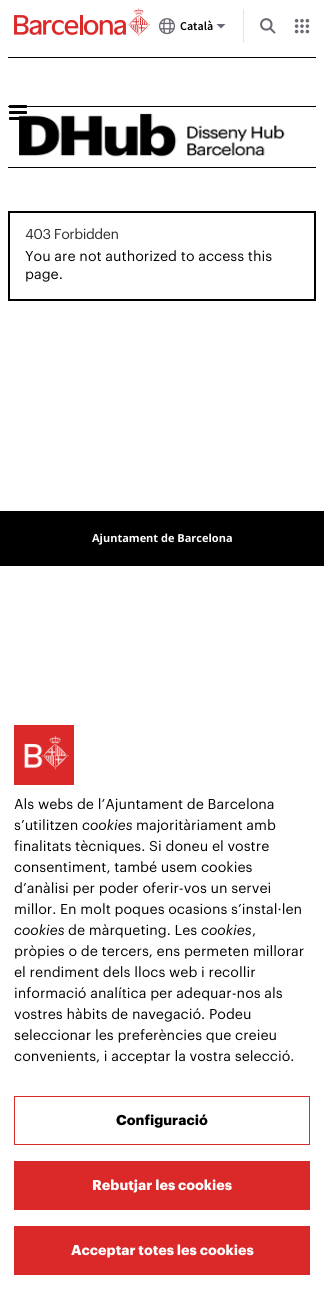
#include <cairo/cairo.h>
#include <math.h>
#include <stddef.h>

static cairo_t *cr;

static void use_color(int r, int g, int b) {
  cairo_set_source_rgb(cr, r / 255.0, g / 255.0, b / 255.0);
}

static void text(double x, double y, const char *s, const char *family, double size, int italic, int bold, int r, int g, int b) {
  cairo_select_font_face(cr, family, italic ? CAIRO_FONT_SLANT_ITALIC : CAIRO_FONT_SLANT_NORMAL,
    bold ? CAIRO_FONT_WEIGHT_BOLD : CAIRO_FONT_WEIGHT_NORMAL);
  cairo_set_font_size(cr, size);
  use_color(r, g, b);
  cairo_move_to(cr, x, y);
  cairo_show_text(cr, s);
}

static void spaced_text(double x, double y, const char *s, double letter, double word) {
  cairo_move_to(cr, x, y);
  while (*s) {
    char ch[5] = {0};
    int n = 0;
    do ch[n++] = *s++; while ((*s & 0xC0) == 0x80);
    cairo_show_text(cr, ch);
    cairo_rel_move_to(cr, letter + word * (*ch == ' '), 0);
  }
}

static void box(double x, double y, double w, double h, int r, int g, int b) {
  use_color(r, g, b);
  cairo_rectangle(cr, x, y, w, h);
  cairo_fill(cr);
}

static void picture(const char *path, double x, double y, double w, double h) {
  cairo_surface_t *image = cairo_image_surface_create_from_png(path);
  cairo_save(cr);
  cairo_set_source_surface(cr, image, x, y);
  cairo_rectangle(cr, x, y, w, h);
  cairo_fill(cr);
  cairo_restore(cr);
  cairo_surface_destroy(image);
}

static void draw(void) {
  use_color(255, 255, 255);
  cairo_paint(cr);
  picture("img_01.png", 14, 8, 136, 28);
  box(243, 9, 1, 34, 229, 229, 229);
  picture("img_02.png", 159, 18, 16, 17);
  use_color(105, 105, 115);
  cairo_new_path(cr);
  cairo_move_to(cr, 216.5, 24);
  cairo_line_to(cr, 221, 28.5);
  cairo_line_to(cr, 225.5, 24);
  cairo_close_path(cr);
  cairo_fill(cr);
  picture("img_03.png", 260, 18, 16, 16);
  picture("img_04.png", 294, 18, 16, 16);
  box(8, 57, 308, 1, 0, 0, 0);
  box(8, 106, 308, 1, 0, 0, 0);
  picture("img_05.png", 19, 113, 266, 44);
  box(8, 167, 308, 1, 0, 0, 0);
  picture("img_06.png", 9, 105, 18, 15);
  cairo_rectangle(cr, 9, 212, 306, 88);
  cairo_stroke(cr);
  box(0, 511, 324, 55, 0, 0, 0);
  picture("img_07.png", 14, 725, 60, 60);
  cairo_rectangle(cr, 14.5, 1096.5, 295, 48);
  use_color(219, 40, 40);
  cairo_set_line_width(cr, 1);
  cairo_stroke(cr);
  box(14, 1161, 296, 49, 219, 40, 40);
  box(14, 1226, 296, 49, 219, 40, 40);
  text(180, 30, "Català", "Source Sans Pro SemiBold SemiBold", 12, 0, 0, 0, 0, 0);
  cairo_select_font_face(cr, "Graphik", CAIRO_FONT_SLANT_NORMAL, CAIRO_FONT_WEIGHT_NORMAL);
  cairo_set_font_size(cr, 14);
  use_color(44, 44, 44);
  spaced_text(25, 239, "403 Forbidden", -0.5, 0);
  text(25, 261, "You are not authorized to access this", "Graphik", 14, 0, 0, 0, 0, 0);
  text(25, 279, "page.", "Graphik", 14, 0, 0, 0, 0, 0);
  text(92, 542, "Ajuntament de Barcelona", "Open Sans", 11, 0, 1, 255, 255, 255);
  text(14, 809, "Als webs de l’Ajuntament de Barcelona", "Graphik", 14, 0, 0, 0, 0, 0);
  text(14, 830, "s’utilitzen", "Graphik", 14, 0, 0, 0, 0, 0);
  text(82, 830, "cookies", "Graphik", 14, 1, 0, 0, 0, 0);
  text(136, 830, "majoritàriament amb", "Graphik", 14, 0, 0, 0, 0, 0);
  text(14, 851, "finalitats tècniques. Si doneu el vostre", "Graphik", 14, 0, 0, 0, 0, 0);
  text(14, 872, "consentiment, també usem cookies", "Graphik", 14, 0, 0, 0, 0, 0);
  text(14, 893, "d’anàlisi per poder oferir-vos un servei", "Graphik", 14, 0, 0, 0, 0, 0);
  text(14, 914, "millor. En molt poques ocasions s’instal·len", "Graphik", 14, 0, 0, 0, 0, 0);
  text(14, 935, "cookies", "Graphik", 14, 1, 0, 0, 0, 0);
  text(68, 935, "de màrqueting. Les", "Graphik", 14, 0, 0, 0, 0, 0);
  text(201, 935, "cookies", "Graphik", 14, 1, 0, 0, 0, 0);
  text(252, 935, ",", "Graphik", 14, 0, 0, 0, 0, 0);
  text(14, 956, "pròpies o de tercers, ens permeten millorar", "Graphik", 14, 0, 0, 0, 0, 0);
  text(14, 977, "el rendiment dels llocs web i recollir", "Graphik", 14, 0, 0, 0, 0, 0);
  text(14, 998, "informació analítica per adequar-nos als", "Graphik", 14, 0, 0, 0, 0, 0);
  text(14, 1019, "vostres hàbits de navegació. Podeu", "Graphik", 14, 0, 0, 0, 0, 0);
  text(14, 1040, "seleccionar les preferències que creieu", "Graphik", 14, 0, 0, 0, 0, 0);
  text(14, 1061, "convenients, i acceptar la vostra selecció.", "Graphik", 14, 0, 0, 0, 0, 0);
  text(116, 1125, "Configuració", "Graphik", 14, 0, 1, 0, 0, 0);
  text(92, 1190, "Rebutjar les cookies", "Graphik", 14, 0, 1, 255, 255, 255);
  text(71, 1255, "Acceptar totes les cookies", "Graphik", 14, 0, 1, 255, 255, 255);
}

int main(void) {
  cairo_surface_t *surface = cairo_image_surface_create(CAIRO_FORMAT_RGB24, 324, 1289);
  cr = cairo_create(surface);
  cairo_font_options_t *options = cairo_font_options_create();
  cairo_font_options_set_hint_metrics(options, CAIRO_HINT_METRICS_OFF);
  cairo_font_options_set_hint_style(options, CAIRO_HINT_STYLE_NONE);
  cairo_set_font_options(cr, options);
  cairo_set_miter_limit(cr, 4);
  draw();
  cairo_surface_write_to_png(surface, "out.png");
  cairo_font_options_destroy(options);
  cairo_destroy(cr);
  cairo_surface_destroy(surface);
  return 0;
}
